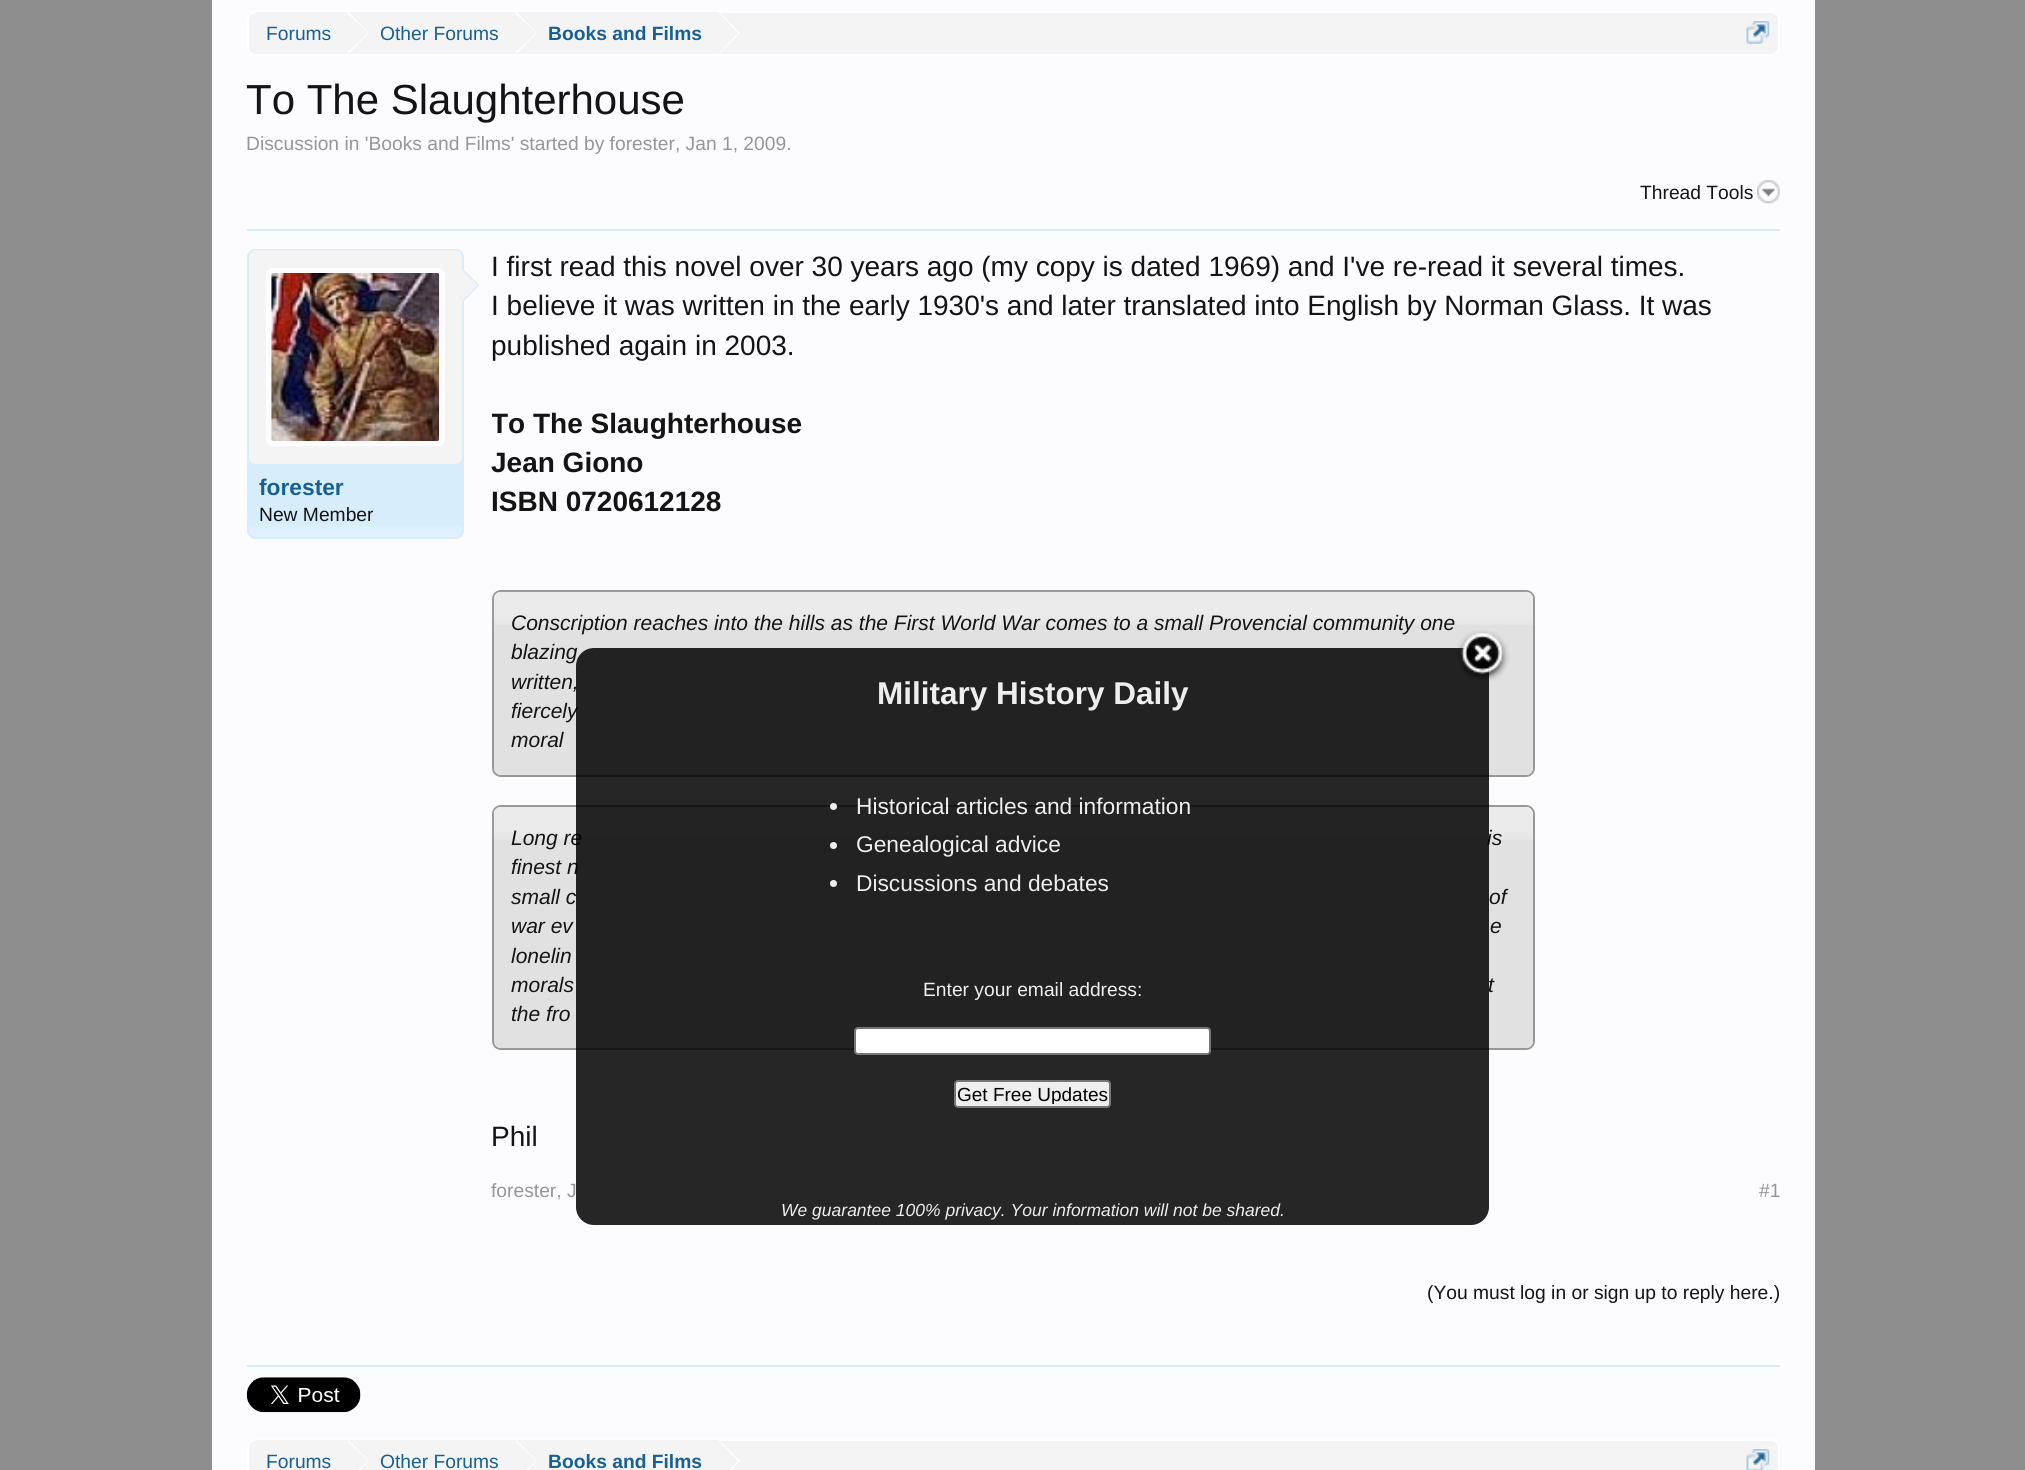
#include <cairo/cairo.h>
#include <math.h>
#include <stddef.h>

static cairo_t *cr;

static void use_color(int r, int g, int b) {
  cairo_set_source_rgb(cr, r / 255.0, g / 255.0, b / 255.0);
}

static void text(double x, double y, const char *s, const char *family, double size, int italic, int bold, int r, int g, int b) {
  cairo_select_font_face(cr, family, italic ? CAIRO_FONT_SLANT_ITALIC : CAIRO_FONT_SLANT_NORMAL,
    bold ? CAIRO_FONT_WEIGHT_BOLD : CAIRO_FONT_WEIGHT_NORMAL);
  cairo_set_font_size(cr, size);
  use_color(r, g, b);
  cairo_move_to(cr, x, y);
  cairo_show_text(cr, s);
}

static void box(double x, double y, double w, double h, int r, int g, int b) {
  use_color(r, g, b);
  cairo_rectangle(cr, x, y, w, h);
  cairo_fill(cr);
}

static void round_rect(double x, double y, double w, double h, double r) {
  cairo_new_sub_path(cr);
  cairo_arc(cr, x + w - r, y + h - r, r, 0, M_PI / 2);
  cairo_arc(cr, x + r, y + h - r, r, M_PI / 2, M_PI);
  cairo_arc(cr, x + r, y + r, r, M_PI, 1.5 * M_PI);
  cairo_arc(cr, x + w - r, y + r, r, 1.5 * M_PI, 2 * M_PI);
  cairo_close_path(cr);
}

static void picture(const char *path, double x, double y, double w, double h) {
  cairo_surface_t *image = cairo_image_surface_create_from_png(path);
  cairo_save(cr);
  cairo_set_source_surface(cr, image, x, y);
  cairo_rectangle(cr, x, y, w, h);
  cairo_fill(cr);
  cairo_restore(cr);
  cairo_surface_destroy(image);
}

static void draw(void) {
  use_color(142, 142, 142);
  cairo_paint(cr);
  box(212, 0, 1603, 1470, 252, 252, 255);
  use_color(244, 244, 244);
  round_rect(248, 12, 1531, 43, 8);
  cairo_fill_preserve(cr);
  use_color(255, 255, 255);
  cairo_stroke(cr);
  cairo_save(cr);
  round_rect(249, 12, 1529, 42, 7);
  cairo_clip(cr);
  use_color(244, 244, 244);
  cairo_new_path(cr);
  cairo_move_to(cr, 258, 12);
  cairo_line_to(cr, 348, 12);
  cairo_line_to(cr, 348, 56);
  cairo_line_to(cr, 258, 56);
  cairo_curve_to(cr, 253, 56, 249, 52, 249, 47);
  cairo_line_to(cr, 249, 21);
  cairo_curve_to(cr, 249, 16, 253, 12, 258, 12);
  cairo_close_path(cr);
  cairo_fill(cr);
  cairo_restore(cr);
  box(348, 12, 371, 1, 244, 244, 244);
  use_color(255, 255, 255);
  cairo_new_path(cr);
  cairo_move_to(cr, 348, 54);
  cairo_line_to(cr, 348, 12);
  cairo_line_to(cr, 369, 33);
  cairo_close_path(cr);
  cairo_fill(cr);
  use_color(244, 244, 244);
  cairo_new_path(cr);
  cairo_move_to(cr, 346, 54);
  cairo_line_to(cr, 346, 12);
  cairo_line_to(cr, 368, 33);
  cairo_close_path(cr);
  cairo_fill(cr);
  use_color(255, 255, 255);
  cairo_new_path(cr);
  cairo_move_to(cr, 516, 54);
  cairo_line_to(cr, 516, 12);
  cairo_line_to(cr, 537, 33);
  cairo_close_path(cr);
  cairo_fill(cr);
  use_color(244, 244, 244);
  cairo_new_path(cr);
  cairo_move_to(cr, 514, 54);
  cairo_line_to(cr, 514, 12);
  cairo_line_to(cr, 536, 33);
  cairo_close_path(cr);
  cairo_fill(cr);
  use_color(255, 255, 255);
  cairo_new_path(cr);
  cairo_move_to(cr, 719, 54);
  cairo_line_to(cr, 719, 12);
  cairo_line_to(cr, 740, 33);
  cairo_close_path(cr);
  cairo_fill(cr);
  use_color(244, 244, 244);
  cairo_new_path(cr);
  cairo_move_to(cr, 718, 54);
  cairo_line_to(cr, 718, 12);
  cairo_line_to(cr, 738, 33);
  cairo_close_path(cr);
  cairo_fill(cr);
  picture("img_01.png", 1746, 21, 24, 23);
  picture("img_02.png", 1757, 180, 23, 24);
  box(247, 229, 1533, 2, 215, 237, 252);
  round_rect(247, 249, 217, 290, 9);
  cairo_fill(cr);
  picture("img_03.png", 247, 525, 216, 12);
  round_rect(248, 250, 215, 288, 8);
  cairo_stroke(cr);
  use_color(244, 244, 244);
  round_rect(249, 250, 213, 214, 7);
  cairo_fill(cr);
  use_color(252, 252, 255);
  round_rect(267, 269, 177, 176, 6);
  cairo_fill_preserve(cr);
  use_color(255, 255, 255);
  cairo_stroke(cr);
  picture("img_04.png", 271, 273, 169, 168);
  use_color(215, 237, 252);
  cairo_new_path(cr);
  cairo_move_to(cr, 462, 303);
  cairo_line_to(cr, 462, 268);
  cairo_line_to(cr, 479.5, 285);
  cairo_close_path(cr);
  cairo_fill(cr);
  use_color(244, 244, 244);
  cairo_new_path(cr);
  cairo_move_to(cr, 460, 303);
  cairo_line_to(cr, 460, 268);
  cairo_line_to(cr, 478, 285);
  cairo_close_path(cr);
  cairo_fill(cr);
  round_rect(493, 591, 1041, 185, 8);
  use_color(152, 152, 152);
  cairo_stroke(cr);
  use_color(225, 225, 225);
  round_rect(494, 592, 1039, 183, 7);
  cairo_fill(cr);
  picture("img_05.png", 493, 591, 1040, 34);
  round_rect(493, 806, 1041, 243, 8);
  use_color(152, 152, 152);
  cairo_stroke(cr);
  use_color(225, 225, 225);
  round_rect(494, 807, 1039, 241, 7);
  cairo_fill(cr);
  picture("img_06.png", 493, 807, 1040, 33);
  box(247, 1365, 1533, 2, 215, 237, 252);
  picture("img_08.png", 246, 1377, 115, 36);
  use_color(244, 244, 244);
  round_rect(248, 1440, 1531, 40, 8);
  cairo_fill_preserve(cr);
  use_color(255, 255, 255);
  cairo_stroke(cr);
  use_color(244, 244, 244);
  cairo_new_path(cr);
  cairo_move_to(cr, 258, 1440);
  cairo_line_to(cr, 348, 1440);
  cairo_line_to(cr, 348, 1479);
  cairo_line_to(cr, 258, 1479);
  cairo_curve_to(cr, 253, 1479, 249, 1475, 249, 1470);
  cairo_line_to(cr, 249, 1449);
  cairo_curve_to(cr, 249, 1444, 253, 1440, 258, 1440);
  cairo_close_path(cr);
  cairo_fill(cr);
  box(348, 1440, 371, 1, 244, 244, 244);
  use_color(255, 255, 255);
  cairo_new_path(cr);
  cairo_move_to(cr, 348, 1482);
  cairo_line_to(cr, 348, 1440);
  cairo_line_to(cr, 369, 1461);
  cairo_close_path(cr);
  cairo_fill(cr);
  use_color(244, 244, 244);
  cairo_new_path(cr);
  cairo_move_to(cr, 346, 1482);
  cairo_line_to(cr, 346, 1440);
  cairo_line_to(cr, 368, 1461);
  cairo_close_path(cr);
  cairo_fill(cr);
  use_color(255, 255, 255);
  cairo_new_path(cr);
  cairo_move_to(cr, 516, 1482);
  cairo_line_to(cr, 516, 1440);
  cairo_line_to(cr, 537, 1461);
  cairo_close_path(cr);
  cairo_fill(cr);
  use_color(244, 244, 244);
  cairo_new_path(cr);
  cairo_move_to(cr, 514, 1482);
  cairo_line_to(cr, 514, 1440);
  cairo_line_to(cr, 536, 1461);
  cairo_close_path(cr);
  cairo_fill(cr);
  use_color(255, 255, 255);
  cairo_new_path(cr);
  cairo_move_to(cr, 719, 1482);
  cairo_line_to(cr, 719, 1440);
  cairo_line_to(cr, 740, 1461);
  cairo_close_path(cr);
  cairo_fill(cr);
  use_color(244, 244, 244);
  cairo_new_path(cr);
  cairo_move_to(cr, 718, 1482);
  cairo_line_to(cr, 718, 1440);
  cairo_line_to(cr, 738, 1461);
  cairo_close_path(cr);
  cairo_fill(cr);
  picture("img_09.png", 1746, 1449, 24, 21);
  text(266, 40, "Forums", "Liberation Sans", 19.25, 0, 0, 23, 96, 147);
  text(380, 40, "Other Forums", "Liberation Sans", 19.25, 0, 0, 23, 96, 147);
  text(548, 40, "Books and Films", "Liberation Sans", 19.25, 0, 1, 23, 96, 147);
  text(246, 114, "To The Slaughterhouse", "Liberation Sans", 42, 0, 0, 20, 20, 20);
  text(246, 150, "Discussion in 'Books and Films' started by forester, Jan 1, 2009.", "Liberation Sans", 19.25, 0, 0, 150, 150, 150);
  text(1640, 199, "Thread Tools", "Liberation Sans", 19.25, 0, 0, 20, 20, 20);
  text(259, 495, "forester", "Liberation Sans", 22.75, 0, 1, 23, 96, 147);
  text(259, 521, "New Member", "Liberation Sans", 19.25, 0, 0, 20, 20, 20);
  text(491, 276, "I first read this novel over 30 years ago (my copy is dated 1969) and I've re-read it several times.", "Liberation Sans", 28, 0, 0, 20, 20, 20);
  text(491, 315, "I believe it was written in the early 1930's and later translated into English by Norman Glass. It was", "Liberation Sans", 28, 0, 0, 20, 20, 20);
  text(491, 355, "published again in 2003.", "Liberation Sans", 28, 0, 0, 20, 20, 20);
  cairo_save(cr);
  cairo_rectangle(cr, 492, 249, 1288, 911);
  cairo_clip(cr);
  text(491, 433, "To The Slaughterhouse", "Liberation Sans", 28, 0, 1, 20, 20, 20);
  cairo_restore(cr);
  text(491, 472, "Jean Giono", "Liberation Sans", 28, 0, 1, 20, 20, 20);
  text(491, 511, "ISBN 0720612128", "Liberation Sans", 28, 0, 1, 20, 20, 20);
  text(511, 630, "Conscription reaches into the hills as the First World War comes to a small Provencial community one", "Liberation Sans", 21, 1, 0, 20, 20, 20);
  text(511, 659, "blazing", "Liberation Sans", 21, 1, 0, 20, 20, 20);
  text(511, 689, "written,", "Liberation Sans", 21, 1, 0, 20, 20, 20);
  text(511, 718, "fiercely", "Liberation Sans", 21, 1, 0, 20, 20, 20);
  text(511, 747, "moral", "Liberation Sans", 21, 1, 0, 20, 20, 20);
  text(511, 845, "Long re", "Liberation Sans", 21, 1, 0, 20, 20, 20);
  text(1487, 845, "is", "Liberation Sans", 21, 1, 0, 20, 20, 20);
  text(511, 874, "finest n", "Liberation Sans", 21, 1, 0, 20, 20, 20);
  text(511, 904, "small c", "Liberation Sans", 21, 1, 0, 20, 20, 20);
  text(1489, 904, "of", "Liberation Sans", 21, 1, 0, 20, 20, 20);
  text(511, 933, "war ev", "Liberation Sans", 21, 1, 0, 20, 20, 20);
  text(1490, 933, "e", "Liberation Sans", 21, 1, 0, 20, 20, 20);
  text(511, 963, "lonelin", "Liberation Sans", 21, 1, 0, 20, 20, 20);
  text(511, 992, "morals", "Liberation Sans", 21, 1, 0, 20, 20, 20);
  text(1488, 992, "t", "Liberation Sans", 21, 1, 0, 20, 20, 20);
  text(511, 1021, "the fro", "Liberation Sans", 21, 1, 0, 20, 20, 20);
  text(491, 1146, "Phil", "Liberation Sans", 28, 0, 0, 20, 20, 20);
  text(491, 1197, "forester, J", "Liberation Sans", 19.25, 0, 0, 150, 150, 150);
  text(1759, 1197, "#1", "Liberation Sans", 19.25, 0, 0, 150, 150, 150);
  cairo_set_source_rgba(cr, 0, 0, 0, 0.85);
  round_rect(576, 648, 913, 577, 18);
  cairo_fill(cr);
  picture("img_07.png", 1457, 630, 52, 51);
  text(877, 704, "Military History Daily", "Liberation Sans", 31.5, 0, 1, 238, 238, 238);
  cairo_new_path(cr);
  cairo_arc(cr, 833.5, 806.5, 3.5, 0, 2 * M_PI);
  cairo_fill(cr);
  text(856, 814, "Historical articles and information", "Liberation Sans", 22.75, 0, 0, 238, 238, 238);
  cairo_new_path(cr);
  cairo_arc(cr, 833.5, 845.5, 3.5, 0, 2 * M_PI);
  cairo_fill(cr);
  text(856, 852, "Genealogical advice", "Liberation Sans", 22.75, 0, 0, 238, 238, 238);
  cairo_new_path(cr);
  cairo_arc(cr, 833.5, 883.5, 3.5, 0, 2 * M_PI);
  cairo_fill(cr);
  text(856, 891, "Discussions and debates", "Liberation Sans", 22.75, 0, 0, 238, 238, 238);
  text(923, 996, "Enter your email address:", "Liberation Sans", 19.25, 0, 0, 238, 238, 238);
  use_color(255, 255, 255);
  round_rect(855, 1028, 355, 26, 3);
  cairo_fill_preserve(cr);
  use_color(118, 118, 118);
  cairo_stroke(cr);
  use_color(239, 239, 239);
  round_rect(955, 1081, 155, 26, 3);
  cairo_fill_preserve(cr);
  use_color(118, 118, 118);
  cairo_stroke(cr);
  cairo_save(cr);
  cairo_rectangle(cr, 957, 1083, 151, 21);
  cairo_clip(cr);
  text(957, 1101, "Get Free Updates", "Liberation Sans", 19, 0, 0, 0, 0, 0);
  cairo_restore(cr);
  text(781, 1216, "We guarantee 100% privacy. Your information will not be shared.", "Liberation Sans", 17.5, 1, 0, 238, 238, 238);
  text(1427, 1299, "(You must log in or sign up to reply here.)", "Liberation Sans", 19.25, 0, 0, 20, 20, 20);
  text(266, 1468, "Forums", "Liberation Sans", 19.25, 0, 0, 23, 96, 147);
  text(380, 1468, "Other Forums", "Liberation Sans", 19.25, 0, 0, 23, 96, 147);
  text(548, 1468, "Books and Films", "Liberation Sans", 19.25, 0, 1, 23, 96, 147);
}

int main(void) {
  cairo_surface_t *surface = cairo_image_surface_create(CAIRO_FORMAT_RGB24, 2025, 1470);
  cr = cairo_create(surface);
  cairo_font_options_t *options = cairo_font_options_create();
  cairo_font_options_set_hint_metrics(options, CAIRO_HINT_METRICS_OFF);
  cairo_font_options_set_hint_style(options, CAIRO_HINT_STYLE_NONE);
  cairo_set_font_options(cr, options);
  cairo_set_miter_limit(cr, 4);
  draw();
  cairo_surface_write_to_png(surface, "out.png");
  cairo_font_options_destroy(options);
  cairo_destroy(cr);
  cairo_surface_destroy(surface);
  return 0;
}
